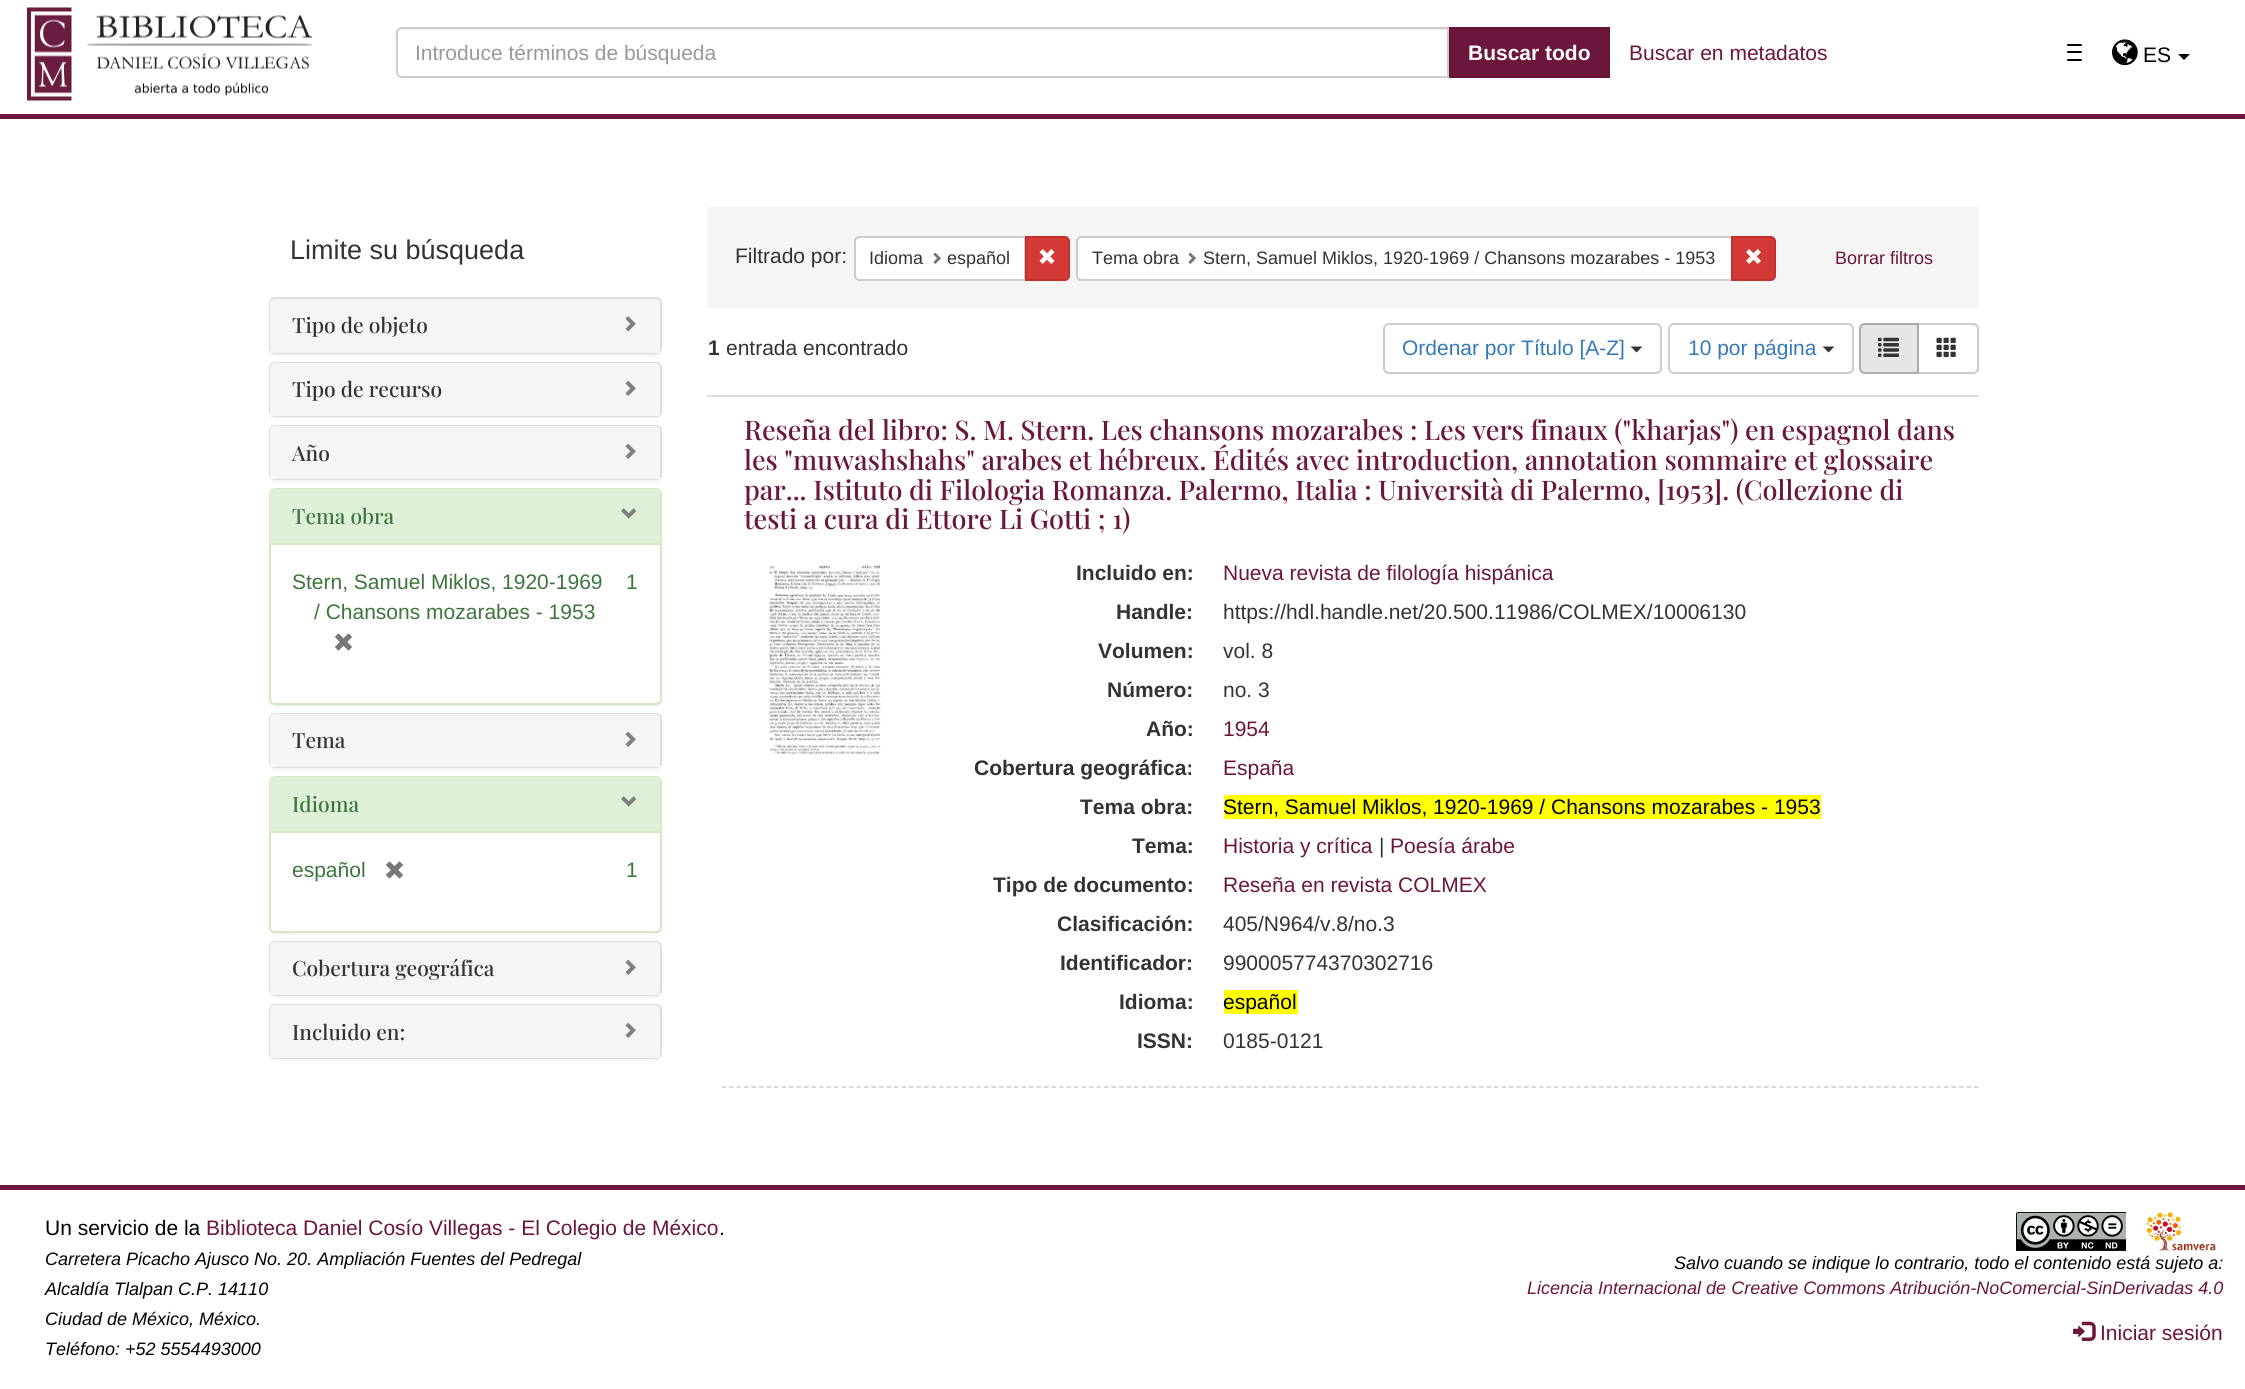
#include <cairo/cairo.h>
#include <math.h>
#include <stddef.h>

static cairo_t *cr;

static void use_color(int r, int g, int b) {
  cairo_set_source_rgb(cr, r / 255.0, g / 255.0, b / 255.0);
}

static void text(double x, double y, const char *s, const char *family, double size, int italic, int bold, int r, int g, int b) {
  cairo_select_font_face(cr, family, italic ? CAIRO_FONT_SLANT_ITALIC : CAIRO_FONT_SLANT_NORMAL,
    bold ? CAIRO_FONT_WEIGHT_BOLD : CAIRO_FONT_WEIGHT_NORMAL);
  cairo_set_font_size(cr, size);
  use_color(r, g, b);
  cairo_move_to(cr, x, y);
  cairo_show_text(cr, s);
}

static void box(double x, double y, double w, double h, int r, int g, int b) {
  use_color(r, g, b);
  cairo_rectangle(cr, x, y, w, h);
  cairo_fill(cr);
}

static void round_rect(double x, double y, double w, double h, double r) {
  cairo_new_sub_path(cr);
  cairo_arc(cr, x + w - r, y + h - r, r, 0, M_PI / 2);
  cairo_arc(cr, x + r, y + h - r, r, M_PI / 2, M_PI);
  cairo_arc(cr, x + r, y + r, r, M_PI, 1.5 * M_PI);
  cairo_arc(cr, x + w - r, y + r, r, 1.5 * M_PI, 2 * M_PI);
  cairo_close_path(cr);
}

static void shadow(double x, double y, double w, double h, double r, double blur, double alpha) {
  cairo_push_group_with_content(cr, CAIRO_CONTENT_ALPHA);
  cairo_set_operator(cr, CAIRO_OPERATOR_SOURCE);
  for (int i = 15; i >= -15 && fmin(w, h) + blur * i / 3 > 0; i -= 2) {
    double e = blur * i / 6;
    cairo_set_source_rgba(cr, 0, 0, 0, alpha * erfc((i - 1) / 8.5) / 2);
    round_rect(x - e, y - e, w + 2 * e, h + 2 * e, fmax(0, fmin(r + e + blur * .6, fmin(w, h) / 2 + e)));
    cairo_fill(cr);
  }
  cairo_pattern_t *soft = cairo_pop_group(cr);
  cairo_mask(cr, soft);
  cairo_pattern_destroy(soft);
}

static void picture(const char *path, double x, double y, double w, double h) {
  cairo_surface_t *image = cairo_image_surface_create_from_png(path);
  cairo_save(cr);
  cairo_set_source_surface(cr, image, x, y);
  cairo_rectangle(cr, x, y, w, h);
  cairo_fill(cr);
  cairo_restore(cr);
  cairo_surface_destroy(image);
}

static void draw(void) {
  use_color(255, 255, 255);
  cairo_paint(cr);
  box(0, 114, 2245, 5, 107, 22, 58);
  picture("img_01.png", 27, 7, 285, 94);
  use_color(236, 236, 236);
  cairo_new_path(cr);
  cairo_move_to(cr, 402, 30);
  cairo_line_to(cr, 1448, 30);
  cairo_line_to(cr, 1448, 29);
  cairo_line_to(cr, 403, 29);
  cairo_curve_to(cr, 400, 29, 398, 31, 398, 34);
  cairo_curve_to(cr, 398, 32, 400, 30, 402, 30);
  cairo_close_path(cr);
  cairo_fill(cr);
  cairo_new_path(cr);
  cairo_move_to(cr, 402, 28);
  cairo_line_to(cr, 1448, 28);
  cairo_line_to(cr, 1448, 77);
  cairo_line_to(cr, 402, 77);
  cairo_curve_to(cr, 399, 77, 397, 75, 397, 72);
  cairo_line_to(cr, 397, 33);
  cairo_curve_to(cr, 397, 30, 399, 28, 402, 28);
  cairo_close_path(cr);
  use_color(204, 204, 204);
  cairo_stroke(cr);
  use_color(107, 22, 58);
  cairo_rectangle(cr, 1450, 28, 159, 49);
  cairo_fill_preserve(cr);
  use_color(102, 21, 55);
  cairo_stroke(cr);
  use_color(0, 0, 0);
  round_rect(2067, 44, 15, 2, 1);
  cairo_fill(cr);
  round_rect(2067, 51, 15, 2, 1);
  cairo_fill(cr);
  round_rect(2067, 59, 15, 2, 1);
  cairo_fill(cr);
  picture("img_02.png", 2112, 39, 26, 27);
  cairo_new_path(cr);
  cairo_move_to(cr, 2178, 54);
  cairo_line_to(cr, 2190, 54);
  cairo_line_to(cr, 2184, 60);
  cairo_close_path(cr);
  cairo_fill(cr);
  use_color(0, 0, 0);
  shadow(269, 299, 393, 57, 6, 1, 0.05);
  use_color(255, 255, 255);
  round_rect(270, 298, 391, 55, 5);
  cairo_fill_preserve(cr);
  use_color(221, 221, 221);
  cairo_stroke(cr);
  use_color(245, 245, 245);
  cairo_new_path(cr);
  cairo_move_to(cr, 275, 299);
  cairo_line_to(cr, 655, 299);
  cairo_curve_to(cr, 658, 299, 660, 301, 660, 304);
  cairo_line_to(cr, 660, 353);
  cairo_line_to(cr, 270, 353);
  cairo_line_to(cr, 270, 304);
  cairo_curve_to(cr, 270, 301, 272, 299, 275, 299);
  cairo_close_path(cr);
  cairo_fill(cr);
  picture("img_03.png", 625, 316, 11, 16);
  use_color(0, 0, 0);
  shadow(269, 363, 393, 56, 6, 1, 0.05);
  round_rect(270, 363, 391, 53, 5);
  use_color(221, 221, 221);
  cairo_stroke(cr);
  use_color(245, 245, 245);
  cairo_new_path(cr);
  cairo_move_to(cr, 275, 363);
  cairo_line_to(cr, 655, 363);
  cairo_curve_to(cr, 658, 363, 660, 365, 660, 368);
  cairo_line_to(cr, 660, 416);
  cairo_line_to(cr, 270, 416);
  cairo_line_to(cr, 270, 368);
  cairo_curve_to(cr, 270, 365, 272, 363, 275, 363);
  cairo_close_path(cr);
  cairo_fill(cr);
  picture("img_04.png", 625, 380, 11, 16);
  use_color(0, 0, 0);
  shadow(269, 426, 393, 56, 6, 1, 0.05);
  round_rect(270, 426, 391, 53, 5);
  use_color(221, 221, 221);
  cairo_stroke(cr);
  use_color(245, 245, 245);
  cairo_new_path(cr);
  cairo_move_to(cr, 275, 426);
  cairo_line_to(cr, 655, 426);
  cairo_curve_to(cr, 658, 426, 660, 428, 660, 431);
  cairo_line_to(cr, 660, 479);
  cairo_line_to(cr, 270, 479);
  cairo_line_to(cr, 270, 431);
  cairo_curve_to(cr, 270, 428, 272, 426, 275, 426);
  cairo_close_path(cr);
  cairo_fill(cr);
  picture("img_04.png", 625, 443, 11, 16);
  use_color(0, 0, 0);
  shadow(269, 489, 393, 218, 6, 1, 0.05);
  use_color(255, 255, 255);
  round_rect(270, 489, 391, 215, 5);
  cairo_fill_preserve(cr);
  use_color(214, 233, 198);
  cairo_stroke(cr);
  use_color(223, 240, 216);
  cairo_new_path(cr);
  cairo_move_to(cr, 275, 489);
  cairo_line_to(cr, 655, 489);
  cairo_curve_to(cr, 658, 489, 660, 491, 660, 494);
  cairo_line_to(cr, 660, 543);
  cairo_line_to(cr, 270, 543);
  cairo_line_to(cr, 270, 494);
  cairo_curve_to(cr, 270, 491, 272, 489, 275, 489);
  cairo_close_path(cr);
  cairo_fill(cr);
  picture("img_05.png", 621, 508, 16, 11);
  box(270, 543, 390, 2, 214, 233, 198);
  picture("img_06.png", 335, 633, 17, 18);
  use_color(0, 0, 0);
  shadow(269, 714, 393, 56, 6, 1, 0.05);
  round_rect(270, 714, 391, 53, 5);
  use_color(221, 221, 221);
  cairo_stroke(cr);
  use_color(245, 245, 245);
  cairo_new_path(cr);
  cairo_move_to(cr, 275, 714);
  cairo_line_to(cr, 655, 714);
  cairo_curve_to(cr, 658, 714, 660, 716, 660, 719);
  cairo_line_to(cr, 660, 767);
  cairo_line_to(cr, 270, 767);
  cairo_line_to(cr, 270, 719);
  cairo_curve_to(cr, 270, 716, 272, 714, 275, 714);
  cairo_close_path(cr);
  cairo_fill(cr);
  picture("img_04.png", 625, 731, 11, 16);
  use_color(0, 0, 0);
  shadow(269, 777, 393, 158, 6, 1, 0.05);
  use_color(255, 255, 255);
  round_rect(270, 777, 391, 155, 5);
  cairo_fill_preserve(cr);
  use_color(214, 233, 198);
  cairo_stroke(cr);
  use_color(223, 240, 216);
  cairo_new_path(cr);
  cairo_move_to(cr, 275, 777);
  cairo_line_to(cr, 655, 777);
  cairo_curve_to(cr, 658, 777, 660, 779, 660, 782);
  cairo_line_to(cr, 660, 831);
  cairo_line_to(cr, 270, 831);
  cairo_line_to(cr, 270, 782);
  cairo_curve_to(cr, 270, 779, 272, 777, 275, 777);
  cairo_close_path(cr);
  cairo_fill(cr);
  picture("img_05.png", 621, 796, 16, 11);
  box(270, 831, 390, 2, 214, 233, 198);
  picture("img_06.png", 386, 861, 17, 18);
  use_color(0, 0, 0);
  shadow(269, 942, 393, 56, 6, 1, 0.05);
  round_rect(270, 942, 391, 53, 5);
  use_color(221, 221, 221);
  cairo_stroke(cr);
  use_color(245, 245, 245);
  cairo_new_path(cr);
  cairo_move_to(cr, 275, 942);
  cairo_line_to(cr, 655, 942);
  cairo_curve_to(cr, 658, 942, 660, 944, 660, 947);
  cairo_line_to(cr, 660, 995);
  cairo_line_to(cr, 270, 995);
  cairo_line_to(cr, 270, 947);
  cairo_curve_to(cr, 270, 944, 272, 942, 275, 942);
  cairo_close_path(cr);
  cairo_fill(cr);
  picture("img_04.png", 625, 959, 11, 16);
  use_color(0, 0, 0);
  shadow(269, 1005, 393, 56, 6, 1, 0.05);
  round_rect(270, 1005, 391, 53, 5);
  use_color(221, 221, 221);
  cairo_stroke(cr);
  use_color(245, 245, 245);
  cairo_new_path(cr);
  cairo_move_to(cr, 275, 1005);
  cairo_line_to(cr, 655, 1005);
  cairo_curve_to(cr, 658, 1005, 660, 1007, 660, 1010);
  cairo_line_to(cr, 660, 1058);
  cairo_line_to(cr, 270, 1058);
  cairo_line_to(cr, 270, 1010);
  cairo_curve_to(cr, 270, 1007, 272, 1005, 275, 1005);
  cairo_close_path(cr);
  cairo_fill(cr);
  picture("img_04.png", 625, 1022, 11, 16);
  box(707, 207, 1272, 101, 245, 245, 245);
  use_color(255, 255, 255);
  cairo_new_path(cr);
  cairo_move_to(cr, 859, 237);
  cairo_line_to(cr, 1025, 237);
  cairo_line_to(cr, 1025, 280);
  cairo_line_to(cr, 859, 280);
  cairo_curve_to(cr, 857, 280, 855, 278, 855, 276);
  cairo_line_to(cr, 855, 241);
  cairo_curve_to(cr, 855, 239, 857, 237, 859, 237);
  cairo_close_path(cr);
  cairo_fill_preserve(cr);
  use_color(204, 204, 204);
  cairo_stroke(cr);
  picture("img_07.png", 933, 252, 8, 12);
  use_color(211, 58, 53);
  cairo_new_path(cr);
  cairo_move_to(cr, 1026, 237);
  cairo_line_to(cr, 1065, 237);
  cairo_curve_to(cr, 1067, 237, 1069, 239, 1069, 241);
  cairo_line_to(cr, 1069, 276);
  cairo_curve_to(cr, 1069, 278, 1067, 280, 1065, 280);
  cairo_line_to(cr, 1026, 280);
  cairo_close_path(cr);
  cairo_fill_preserve(cr);
  use_color(196, 48, 43);
  cairo_stroke(cr);
  picture("img_08.png", 1039, 249, 16, 15);
  use_color(255, 255, 255);
  cairo_new_path(cr);
  cairo_move_to(cr, 1081, 237);
  cairo_line_to(cr, 1732, 237);
  cairo_line_to(cr, 1732, 280);
  cairo_line_to(cr, 1081, 280);
  cairo_curve_to(cr, 1079, 280, 1077, 278, 1077, 276);
  cairo_line_to(cr, 1077, 241);
  cairo_curve_to(cr, 1077, 239, 1079, 237, 1081, 237);
  cairo_close_path(cr);
  cairo_fill_preserve(cr);
  use_color(204, 204, 204);
  cairo_stroke(cr);
  picture("img_07.png", 1188, 252, 8, 12);
  use_color(211, 58, 53);
  cairo_new_path(cr);
  cairo_move_to(cr, 1732, 237);
  cairo_line_to(cr, 1771, 237);
  cairo_curve_to(cr, 1773, 237, 1775, 239, 1775, 241);
  cairo_line_to(cr, 1775, 276);
  cairo_curve_to(cr, 1775, 278, 1773, 280, 1771, 280);
  cairo_line_to(cr, 1732, 280);
  cairo_close_path(cr);
  cairo_fill_preserve(cr);
  use_color(196, 48, 43);
  cairo_stroke(cr);
  picture("img_09.png", 1746, 249, 15, 15);
  box(707, 395, 1272, 2, 221, 221, 221);
  round_rect(1384, 324, 277, 49, 5);
  use_color(204, 204, 204);
  cairo_stroke(cr);
  use_color(51, 51, 51);
  cairo_new_path(cr);
  cairo_move_to(cr, 1630.5, 346.5);
  cairo_line_to(cr, 1642.5, 346.5);
  cairo_line_to(cr, 1636.5, 352.5);
  cairo_close_path(cr);
  cairo_fill(cr);
  round_rect(1669, 324, 184, 49, 5);
  use_color(204, 204, 204);
  cairo_stroke(cr);
  use_color(51, 51, 51);
  cairo_new_path(cr);
  cairo_move_to(cr, 1822.5, 346.5);
  cairo_line_to(cr, 1834.5, 346.5);
  cairo_line_to(cr, 1828.5, 352.5);
  cairo_close_path(cr);
  cairo_fill(cr);
  cairo_new_path(cr);
  cairo_move_to(cr, 1918, 324);
  cairo_line_to(cr, 1973, 324);
  cairo_curve_to(cr, 1976, 324, 1978, 326, 1978, 329);
  cairo_line_to(cr, 1978, 368);
  cairo_curve_to(cr, 1978, 371, 1976, 373, 1973, 373);
  cairo_line_to(cr, 1918, 373);
  cairo_close_path(cr);
  use_color(204, 204, 204);
  cairo_stroke(cr);
  use_color(230, 230, 230);
  cairo_new_path(cr);
  cairo_move_to(cr, 1865, 324);
  cairo_line_to(cr, 1918, 324);
  cairo_line_to(cr, 1918, 373);
  cairo_line_to(cr, 1865, 373);
  cairo_curve_to(cr, 1862, 373, 1860, 371, 1860, 368);
  cairo_line_to(cr, 1860, 329);
  cairo_curve_to(cr, 1860, 326, 1862, 324, 1865, 324);
  cairo_close_path(cr);
  cairo_fill_preserve(cr);
  use_color(173, 173, 173);
  cairo_stroke(cr);
  picture("img_10.png", 1878, 337, 21, 20);
  picture("img_11.png", 1936, 337, 20, 20);
  cairo_new_path(cr);
  cairo_move_to(cr, 721.5, 1087);
  cairo_line_to(cr, 1978.5, 1087);
  use_color(204, 204, 204);
  cairo_set_line_width(cr, 1.5);
  cairo_set_dash(cr, (double[]){4.5, 3}, 2, 0);
  cairo_stroke(cr);
  picture("img_12.png", 769, 565, 112, 190);
  box(1224, 795, 597, 24, 255, 255, 0);
  box(1224, 990, 74, 24, 255, 255, 0);
  box(0, 1185, 2245, 5, 107, 22, 58);
  picture("img_13.png", 2016, 1212, 110, 39);
  picture("img_14.png", 2146, 1212, 70, 39);
  picture("img_15.png", 2073, 1321, 23, 20);
  text(415, 60, "Introduce términos de búsqueda", "Liberation Sans", 21, 0, 0, 153, 153, 153);
  text(1468, 60, "Buscar todo", "Liberation Sans", 21, 0, 1, 255, 255, 255);
  text(1629, 60, "Buscar en metadatos", "Liberation Sans", 21, 0, 0, 107, 22, 58);
  text(2143, 62, "ES", "Liberation Sans", 21, 0, 0, 0, 0, 0);
  text(290, 259, "Limite su búsqueda", "Liberation Sans", 27, 0, 0, 51, 51, 51);
  text(292, 333, "Tipo de objeto", "Playfair Display Medium", 21, 0, 0, 51, 51, 51);
  text(292, 397, "Tipo de recurso", "Playfair Display Medium", 21, 0, 0, 51, 51, 51);
  text(292, 461, "Año", "Playfair Display Medium", 21, 0, 0, 51, 51, 51);
  text(292, 524, "Tema obra", "Playfair Display Medium", 21, 0, 0, 60, 118, 61);
  text(292, 589, "Stern, Samuel Miklos, 1920-1969", "Liberation Sans", 21, 0, 0, 60, 118, 61);
  text(314, 619, "/ Chansons mozarabes - 1953", "Liberation Sans", 21, 0, 0, 60, 118, 61);
  text(626, 589, "1", "Liberation Sans", 21, 0, 0, 60, 118, 61);
  text(292, 748, "Tema", "Playfair Display Medium", 21, 0, 0, 51, 51, 51);
  text(292, 812, "Idioma", "Playfair Display Medium", 21, 0, 0, 60, 118, 61);
  text(292, 877, "español", "Liberation Sans", 21, 0, 0, 60, 118, 61);
  text(626, 877, "1", "Liberation Sans", 21, 0, 0, 60, 118, 61);
  text(292, 976, "Cobertura geográfica", "Playfair Display Medium", 21, 0, 0, 51, 51, 51);
  text(292, 1040, "Incluido en:", "Playfair Display Medium", 21, 0, 0, 51, 51, 51);
  text(735, 263, "Filtrado por:", "Liberation Sans", 21, 0, 0, 51, 51, 51);
  text(869, 264, "Idioma", "Liberation Sans", 18, 0, 0, 51, 51, 51);
  text(947, 264, "español", "Liberation Sans", 18, 0, 0, 51, 51, 51);
  text(1092, 264, "Tema obra", "Liberation Sans", 18, 0, 0, 51, 51, 51);
  text(1203, 264, "Stern, Samuel Miklos, 1920-1969 / Chansons mozarabes - 1953", "Liberation Sans", 18, 0, 0, 51, 51, 51);
  text(1835, 264, "Borrar filtros", "Liberation Sans", 18, 0, 0, 107, 22, 58);
  text(708, 355, "1", "Liberation Sans", 21, 0, 1, 51, 51, 51);
  text(726, 355, "entrada encontrado", "Liberation Sans", 21, 0, 0, 51, 51, 51);
  text(1402, 355, "Ordenar por Título [A-Z]", "Liberation Sans", 21, 0, 0, 51, 122, 183);
  text(1688, 355, "10 por página", "Liberation Sans", 21, 0, 0, 51, 122, 183);
  text(744, 440, "Reseña del libro: S. M. Stern. Les chansons mozarabes : Les vers finaux (\"kharjas\") en espagnol dans", "Playfair Display Medium", 27, 0, 0, 107, 22, 58);
  text(744, 470, "les \"muwashshahs\" arabes et hébreux. Édités avec introduction, annotation sommaire et glossaire", "Playfair Display Medium", 27, 0, 0, 107, 22, 58);
  text(744, 500, "par... Istituto di Filologia Romanza. Palermo, Italia : Università di Palermo, [1953]. (Collezione di", "Playfair Display Medium", 27, 0, 0, 107, 22, 58);
  text(744, 529, "testi a cura di Ettore Li Gotti ; 1)", "Playfair Display Medium", 27, 0, 0, 107, 22, 58);
  text(1076, 580, "Incluido en:", "Liberation Sans", 21, 0, 1, 51, 51, 51);
  text(1223, 580, "Nueva revista de filología hispánica", "Liberation Sans", 21, 0, 0, 107, 22, 58);
  text(1116, 619, "Handle:", "Liberation Sans", 21, 0, 1, 51, 51, 51);
  text(1223, 619, "https://hdl.handle.net/20.500.11986/COLMEX/10006130", "Liberation Sans", 21, 0, 0, 51, 51, 51);
  text(1098, 658, "Volumen:", "Liberation Sans", 21, 0, 1, 51, 51, 51);
  text(1223, 658, "vol. 8", "Liberation Sans", 21, 0, 0, 51, 51, 51);
  text(1107, 697, "Número:", "Liberation Sans", 21, 0, 1, 51, 51, 51);
  text(1223, 697, "no. 3", "Liberation Sans", 21, 0, 0, 51, 51, 51);
  text(1146, 736, "Año:", "Liberation Sans", 21, 0, 1, 51, 51, 51);
  text(1223, 736, "1954", "Liberation Sans", 21, 0, 0, 107, 22, 58);
  text(974, 775, "Cobertura geográfica:", "Liberation Sans", 21, 0, 1, 51, 51, 51);
  text(1223, 775, "España", "Liberation Sans", 21, 0, 0, 107, 22, 58);
  text(1080, 814, "Tema obra:", "Liberation Sans", 21, 0, 1, 51, 51, 51);
  text(1223, 814, "Stern, Samuel Miklos, 1920-1969 / Chansons mozarabes - 1953", "Liberation Sans", 21, 0, 0, 0, 0, 0);
  text(1132, 853, "Tema:", "Liberation Sans", 21, 0, 1, 51, 51, 51);
  text(1223, 853, "Historia y crítica", "Liberation Sans", 21, 0, 0, 107, 22, 58);
  text(1379, 853, "|", "Liberation Sans", 21, 0, 0, 51, 51, 51);
  text(1390, 853, "Poesía árabe", "Liberation Sans", 21, 0, 0, 107, 22, 58);
  text(993, 892, "Tipo de documento:", "Liberation Sans", 21, 0, 1, 51, 51, 51);
  text(1223, 892, "Reseña en revista COLMEX", "Liberation Sans", 21, 0, 0, 107, 22, 58);
  text(1057, 931, "Clasificación:", "Liberation Sans", 21, 0, 1, 51, 51, 51);
  text(1223, 931, "405/N964/v.8/no.3", "Liberation Sans", 21, 0, 0, 51, 51, 51);
  text(1060, 970, "Identificador:", "Liberation Sans", 21, 0, 1, 51, 51, 51);
  text(1223, 970, "990005774370302716", "Liberation Sans", 21, 0, 0, 51, 51, 51);
  text(1119, 1009, "Idioma:", "Liberation Sans", 21, 0, 1, 51, 51, 51);
  text(1223, 1009, "español", "Liberation Sans", 21, 0, 0, 0, 0, 0);
  text(1137, 1048, "ISSN:", "Liberation Sans", 21, 0, 1, 51, 51, 51);
  text(1223, 1048, "0185-0121", "Liberation Sans", 21, 0, 0, 51, 51, 51);
  text(45, 1235, "Un servicio de la", "Liberation Sans", 21, 0, 0, 0, 0, 0);
  text(206, 1235, "Biblioteca Daniel Cosío Villegas - El Colegio de México", "Liberation Sans", 21, 0, 0, 107, 22, 58);
  text(719, 1235, ".", "Liberation Sans", 21, 0, 0, 0, 0, 0);
  text(45, 1265, "Carretera Picacho Ajusco No. 20. Ampliación Fuentes del Pedregal", "Liberation Sans", 18, 1, 0, 0, 0, 0);
  text(45, 1295, "Alcaldía Tlalpan C.P. 14110", "Liberation Sans", 18, 1, 0, 0, 0, 0);
  text(45, 1325, "Ciudad de México, México.", "Liberation Sans", 18, 1, 0, 0, 0, 0);
  text(45, 1355, "Teléfono: +52 5554493000", "Liberation Sans", 18, 1, 0, 0, 0, 0);
  text(1674, 1269, "Salvo cuando se indique lo contrario, todo el contenido está sujeto a:", "Liberation Sans", 18, 1, 0, 0, 0, 0);
  text(1527, 1294, "Licencia Internacional de Creative Commons Atribución-NoComercial-SinDerivadas 4.0", "Liberation Sans", 18, 1, 0, 107, 22, 58);
  text(2100, 1340, "Iniciar sesión", "Liberation Sans", 21, 0, 0, 107, 22, 58);
}

int main(void) {
  cairo_surface_t *surface = cairo_image_surface_create(CAIRO_FORMAT_RGB24, 2245, 1389);
  cr = cairo_create(surface);
  cairo_font_options_t *options = cairo_font_options_create();
  cairo_font_options_set_hint_metrics(options, CAIRO_HINT_METRICS_OFF);
  cairo_font_options_set_hint_style(options, CAIRO_HINT_STYLE_NONE);
  cairo_set_font_options(cr, options);
  cairo_set_miter_limit(cr, 4);
  draw();
  cairo_surface_write_to_png(surface, "out.png");
  cairo_font_options_destroy(options);
  cairo_destroy(cr);
  cairo_surface_destroy(surface);
  return 0;
}
